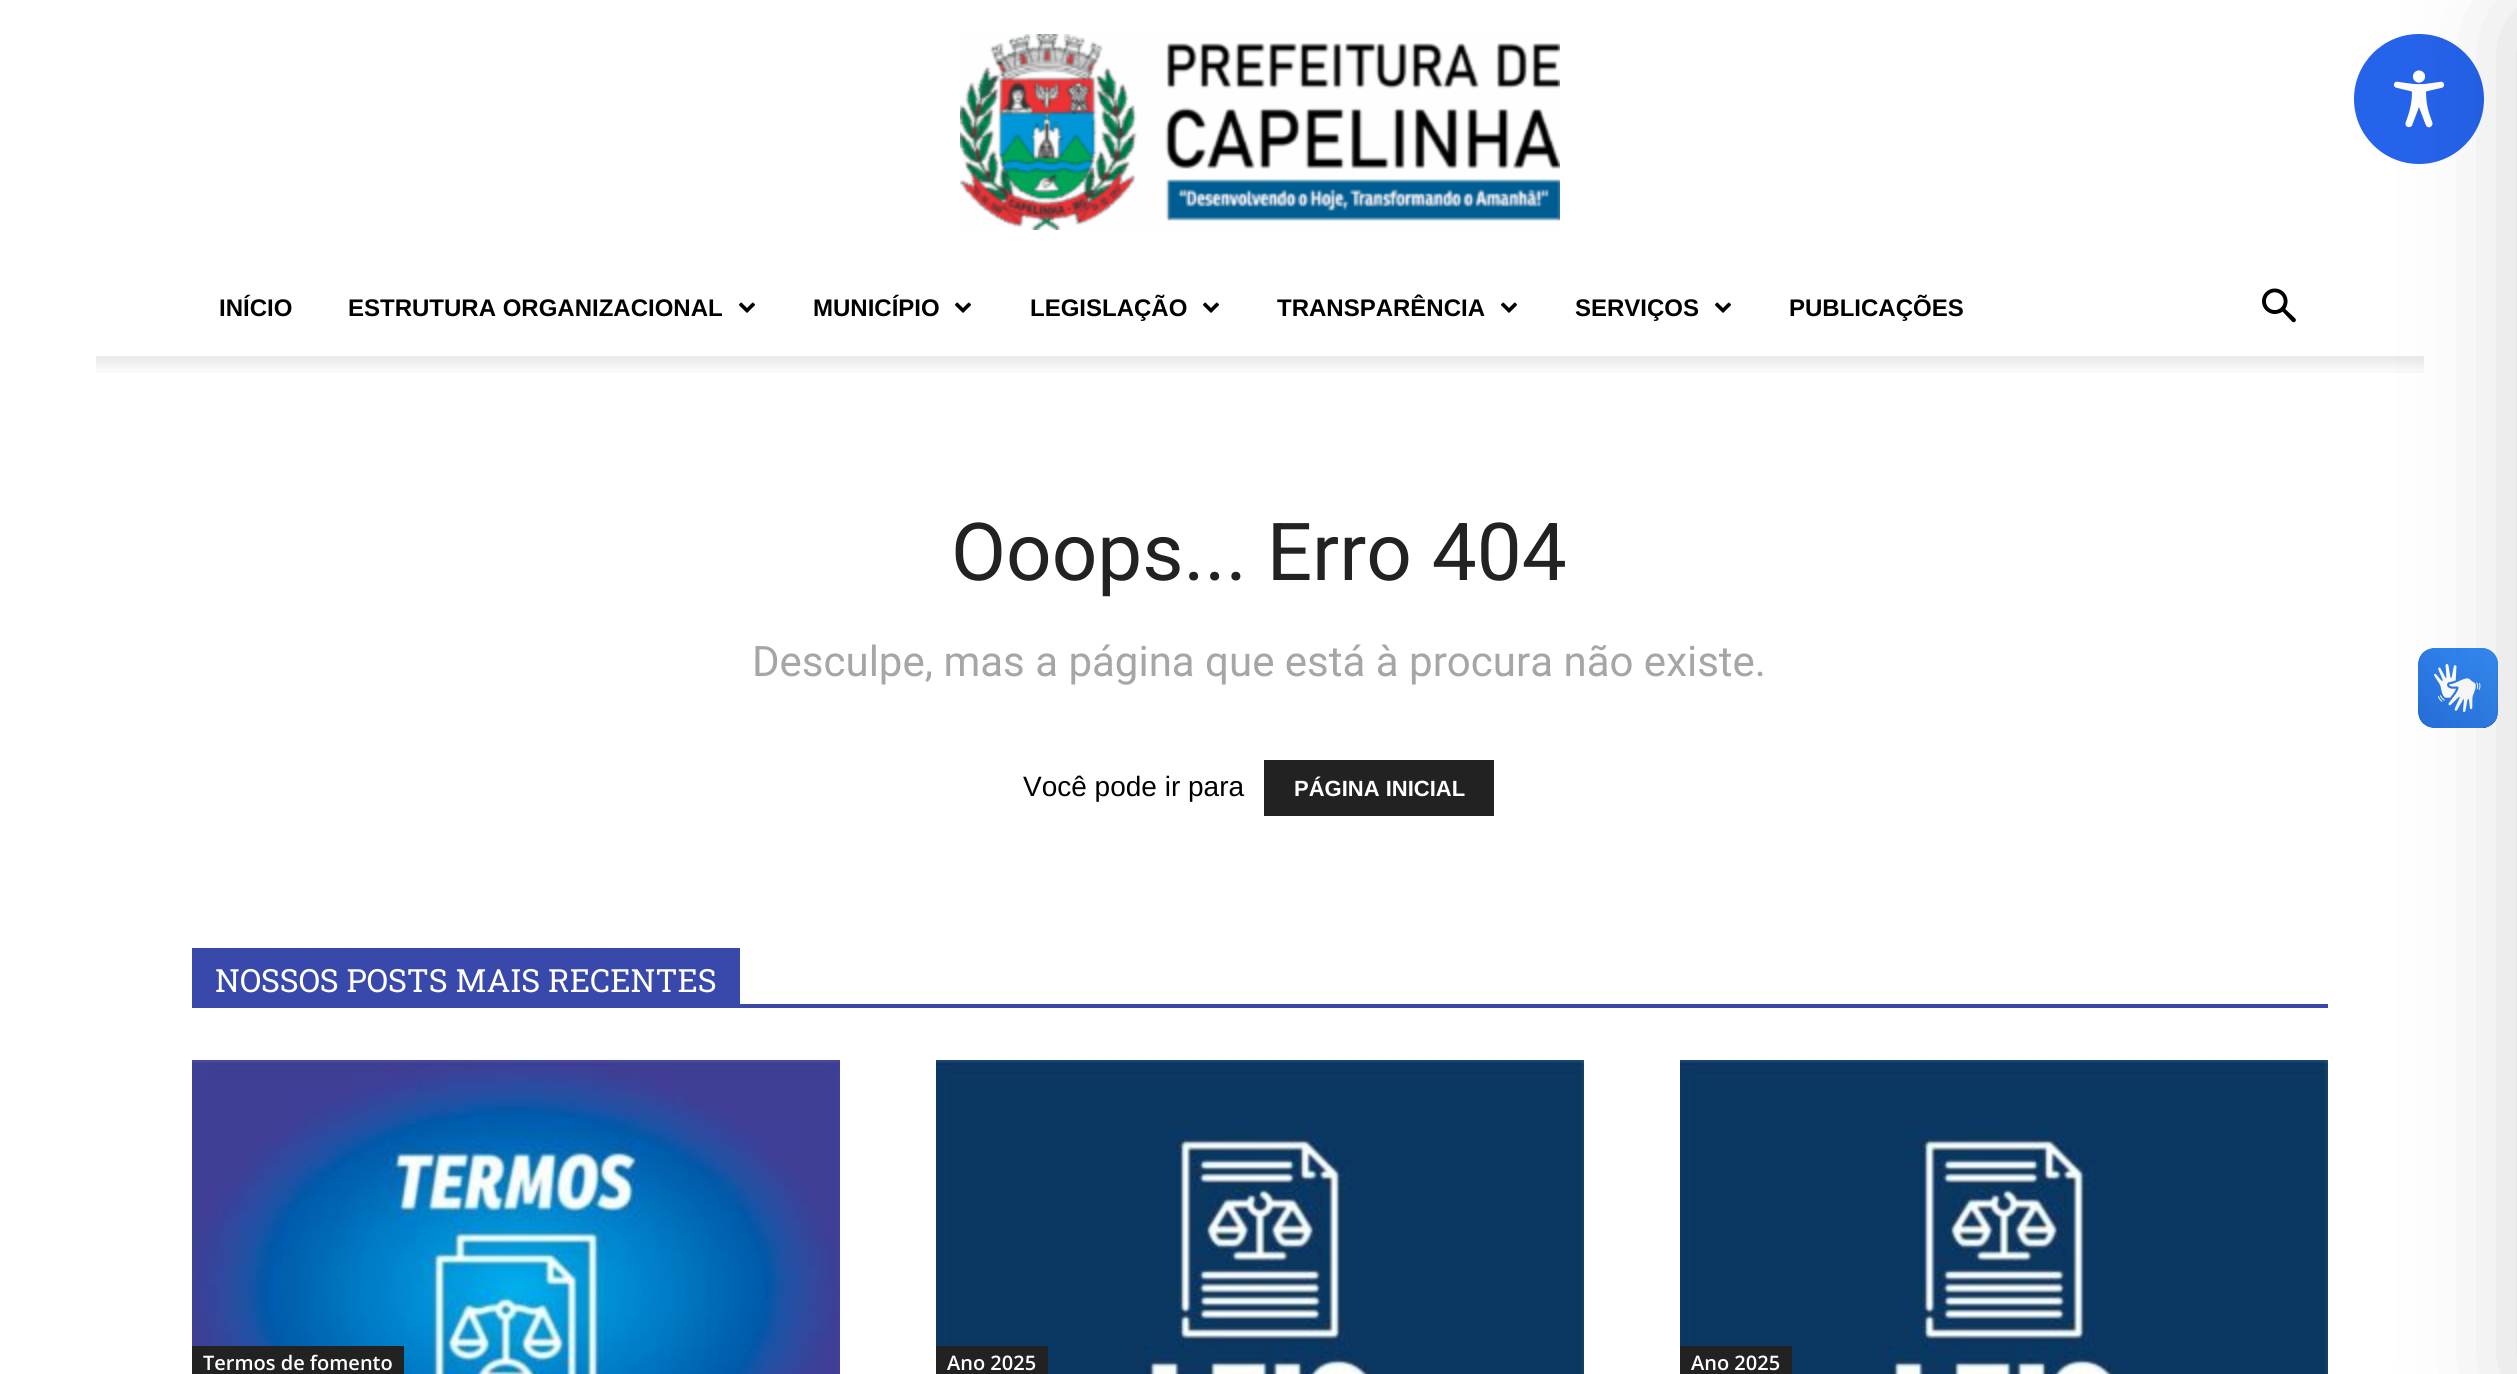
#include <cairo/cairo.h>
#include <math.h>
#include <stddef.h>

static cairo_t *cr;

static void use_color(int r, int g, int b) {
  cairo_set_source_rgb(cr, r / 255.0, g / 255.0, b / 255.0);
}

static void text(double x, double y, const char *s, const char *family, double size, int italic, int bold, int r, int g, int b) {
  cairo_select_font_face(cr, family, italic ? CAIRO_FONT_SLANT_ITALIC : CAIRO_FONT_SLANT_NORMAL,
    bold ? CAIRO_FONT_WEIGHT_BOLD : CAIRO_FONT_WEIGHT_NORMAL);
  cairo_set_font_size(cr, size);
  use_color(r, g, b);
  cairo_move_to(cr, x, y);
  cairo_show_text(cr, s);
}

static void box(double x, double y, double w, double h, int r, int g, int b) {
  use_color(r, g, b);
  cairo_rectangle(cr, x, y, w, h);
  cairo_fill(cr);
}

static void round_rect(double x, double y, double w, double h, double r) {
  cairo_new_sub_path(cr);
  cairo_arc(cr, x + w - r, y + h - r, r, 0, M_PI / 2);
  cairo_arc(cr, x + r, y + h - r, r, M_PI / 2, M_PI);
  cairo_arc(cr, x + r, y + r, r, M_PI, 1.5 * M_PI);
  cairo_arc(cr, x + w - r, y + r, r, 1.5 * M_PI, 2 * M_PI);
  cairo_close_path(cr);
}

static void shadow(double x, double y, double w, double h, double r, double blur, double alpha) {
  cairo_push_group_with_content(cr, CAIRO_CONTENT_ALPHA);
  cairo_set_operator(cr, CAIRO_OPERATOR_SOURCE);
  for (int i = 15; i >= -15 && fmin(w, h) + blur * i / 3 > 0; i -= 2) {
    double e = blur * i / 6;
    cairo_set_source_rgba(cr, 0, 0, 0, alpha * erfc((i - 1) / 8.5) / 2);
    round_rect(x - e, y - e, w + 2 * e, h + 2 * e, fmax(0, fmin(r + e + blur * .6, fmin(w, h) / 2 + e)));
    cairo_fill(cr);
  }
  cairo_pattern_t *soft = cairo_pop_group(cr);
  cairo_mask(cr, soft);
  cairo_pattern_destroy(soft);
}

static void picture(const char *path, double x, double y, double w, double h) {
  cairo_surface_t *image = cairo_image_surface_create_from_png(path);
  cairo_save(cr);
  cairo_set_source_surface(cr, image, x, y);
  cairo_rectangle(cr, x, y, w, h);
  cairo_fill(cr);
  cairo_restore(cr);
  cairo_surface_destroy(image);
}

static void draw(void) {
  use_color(255, 255, 255);
  cairo_paint(cr);
  use_color(37, 99, 235);
  cairo_arc(cr, 2419, 99, 65, 0, 2 * M_PI);
  cairo_fill(cr);
  picture("img_01.png", 2393, 70, 52, 58);
  picture("img_05.png", 96, 356, 2328, 17);
  picture("img_08.png", 2418, 648, 80, 80);
  picture("img_09.png", 2418, 648, 80, 80);
  use_color(0, 0, 0);
  shadow(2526, 20, 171, 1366, 0, 60, 0.2);
  picture("img_02.png", 960, 34, 600, 196);
  picture("img_03.png", 738, 302, 18, 11);
  picture("img_03.png", 954, 302, 18, 11);
  picture("img_03.png", 1202, 302, 18, 11);
  picture("img_03.png", 1500, 302, 18, 11);
  picture("img_03.png", 1714, 302, 18, 11);
  picture("img_04.png", 2262, 288, 34, 35);
  box(1264, 760, 230, 56, 34, 34, 34);
  box(192, 1004, 2136, 4, 57, 73, 171);
  box(192, 948, 548, 56, 57, 73, 171);
  picture("img_06.png", 192, 1060, 648, 314);
  box(192, 1346, 212, 28, 34, 34, 34);
  picture("img_07.png", 936, 1060, 648, 314);
  box(936, 1346, 112, 28, 34, 34, 34);
  picture("img_07.png", 1680, 1060, 648, 314);
  box(1680, 1346, 112, 28, 34, 34, 34);
  text(219, 316, "INÍCIO", "Liberation Sans", 24, 0, 1, 0, 0, 0);
  text(348, 316, "ESTRUTURA ORGANIZACIONAL", "Liberation Sans", 24, 0, 1, 0, 0, 0);
  text(813, 316, "MUNICÍPIO", "Liberation Sans", 24, 0, 1, 0, 0, 0);
  text(1030, 316, "LEGISLAÇÃO", "Liberation Sans", 24, 0, 1, 0, 0, 0);
  text(1277, 316, "TRANSPARÊNCIA", "Liberation Sans", 24, 0, 1, 0, 0, 0);
  text(1575, 316, "SERVIÇOS", "Liberation Sans", 24, 0, 1, 0, 0, 0);
  text(1789, 316, "PUBLICAÇÕES", "Liberation Sans", 24, 0, 1, 0, 0, 0);
  text(951, 580, "Ooops... Erro 404", "Roboto", 80, 0, 0, 34, 34, 34);
  text(752, 676, "Desculpe, mas a página que está à procura não existe.", "Roboto", 42, 0, 0, 166, 166, 166);
  text(1023, 796, "Você pode ir para", "Liberation Sans", 28, 0, 0, 0, 0, 0);
  text(1294, 796, "PÁGINA INICIAL", "Liberation Sans", 22, 0, 1, 255, 255, 255);
  text(215, 992, "NOSSOS POSTS MAIS RECENTES", "Roboto Slab", 32, 0, 0, 255, 255, 255);
  text(203, 1370, "Termos de fomento", "Open Sans SemiBold", 20, 0, 0, 255, 255, 255);
  text(947, 1370, "Ano 2025", "Open Sans SemiBold", 20, 0, 0, 255, 255, 255);
  text(1691, 1370, "Ano 2025", "Open Sans SemiBold", 20, 0, 0, 255, 255, 255);
}

int main(void) {
  cairo_surface_t *surface = cairo_image_surface_create(CAIRO_FORMAT_RGB24, 2517, 1374);
  cr = cairo_create(surface);
  cairo_font_options_t *options = cairo_font_options_create();
  cairo_font_options_set_hint_metrics(options, CAIRO_HINT_METRICS_OFF);
  cairo_font_options_set_hint_style(options, CAIRO_HINT_STYLE_NONE);
  cairo_set_font_options(cr, options);
  cairo_set_miter_limit(cr, 4);
  draw();
  cairo_surface_write_to_png(surface, "out.png");
  cairo_font_options_destroy(options);
  cairo_destroy(cr);
  cairo_surface_destroy(surface);
  return 0;
}
